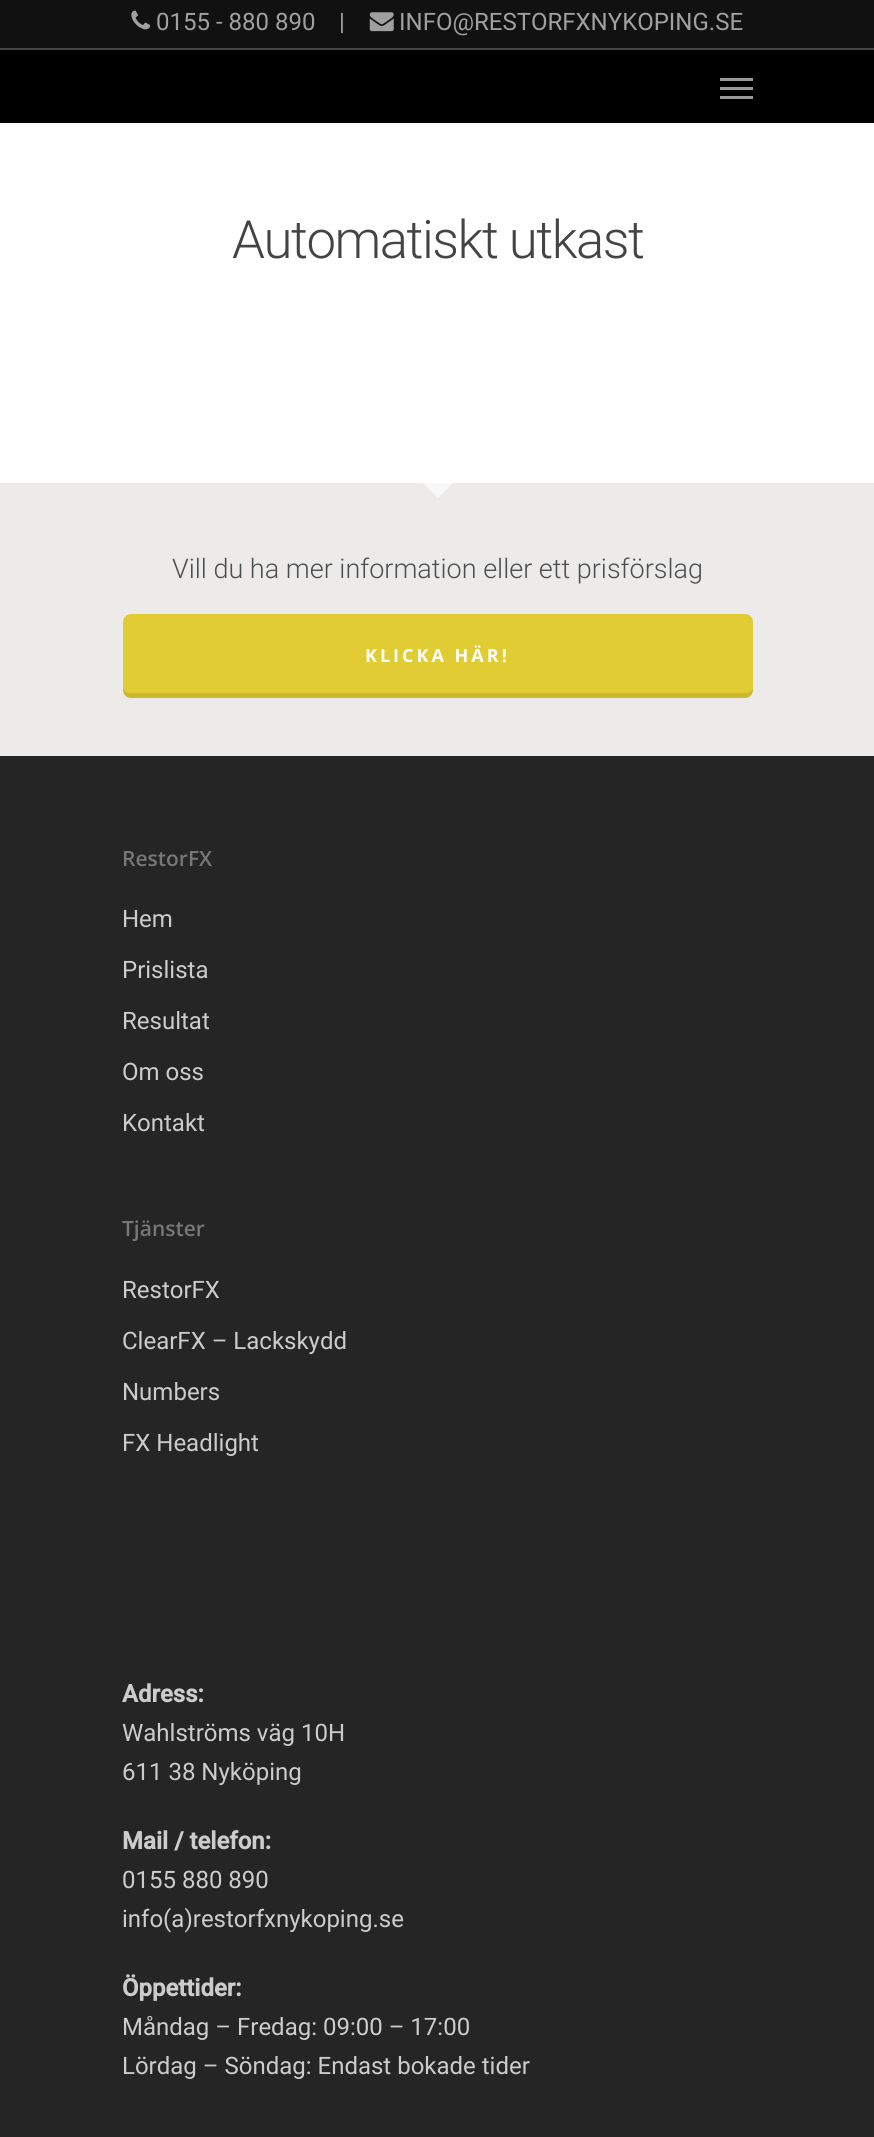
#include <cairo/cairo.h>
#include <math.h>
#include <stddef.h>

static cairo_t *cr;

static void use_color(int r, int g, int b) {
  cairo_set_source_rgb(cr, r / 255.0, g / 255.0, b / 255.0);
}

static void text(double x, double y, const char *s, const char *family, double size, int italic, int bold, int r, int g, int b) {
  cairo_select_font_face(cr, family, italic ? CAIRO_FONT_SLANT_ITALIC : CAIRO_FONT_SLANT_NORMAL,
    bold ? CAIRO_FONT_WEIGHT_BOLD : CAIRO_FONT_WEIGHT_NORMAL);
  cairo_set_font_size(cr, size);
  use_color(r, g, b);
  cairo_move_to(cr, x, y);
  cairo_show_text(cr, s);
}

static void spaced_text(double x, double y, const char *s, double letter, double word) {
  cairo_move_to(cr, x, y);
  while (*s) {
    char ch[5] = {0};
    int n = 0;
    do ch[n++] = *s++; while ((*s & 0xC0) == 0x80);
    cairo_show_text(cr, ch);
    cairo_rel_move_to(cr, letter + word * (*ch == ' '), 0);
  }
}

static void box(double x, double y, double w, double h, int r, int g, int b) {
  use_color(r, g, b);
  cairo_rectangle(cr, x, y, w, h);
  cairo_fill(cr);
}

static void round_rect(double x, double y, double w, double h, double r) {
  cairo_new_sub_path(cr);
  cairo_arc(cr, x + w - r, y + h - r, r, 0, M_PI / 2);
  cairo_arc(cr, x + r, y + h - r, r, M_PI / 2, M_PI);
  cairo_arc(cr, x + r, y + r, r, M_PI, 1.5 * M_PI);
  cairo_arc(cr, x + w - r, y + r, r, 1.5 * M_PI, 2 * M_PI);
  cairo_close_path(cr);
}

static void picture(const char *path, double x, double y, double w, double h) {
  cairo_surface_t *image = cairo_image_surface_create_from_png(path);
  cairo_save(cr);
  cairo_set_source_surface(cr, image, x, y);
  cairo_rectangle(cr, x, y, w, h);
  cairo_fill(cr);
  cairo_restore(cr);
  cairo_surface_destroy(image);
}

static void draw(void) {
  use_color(255, 255, 255);
  cairo_paint(cr);
  box(0, 50, 874, 73, 0, 0, 0);
  box(0, 0, 874, 48, 17, 17, 17);
  box(0, 48, 874, 2, 68, 68, 68);
  picture("img_01.png", 131, 10, 20, 20);
  picture("img_02.png", 369, 12, 25, 20);
  box(720, 78, 33, 3, 153, 153, 153);
  box(720, 96, 33, 3, 153, 153, 153);
  box(720, 87, 33, 3, 153, 153, 153);
  box(0, 756, 874, 1381, 37, 37, 37);
  box(0, 483, 874, 273, 236, 235, 233);
  use_color(248, 248, 248);
  cairo_new_path(cr);
  cairo_move_to(cr, 423, 483);
  cairo_line_to(cr, 453, 483);
  cairo_line_to(cr, 438, 498);
  cairo_close_path(cr);
  cairo_fill(cr);
  use_color(226, 204, 52);
  round_rect(123, 614, 630, 84, 8);
  cairo_fill(cr);
  cairo_set_source_rgba(cr, 0, 0, 0, 0.1);
  cairo_new_path(cr);
  cairo_move_to(cr, 123, 686);
  cairo_curve_to(cr, 123, 692, 124, 698, 131, 698);
  cairo_line_to(cr, 745, 698);
  cairo_curve_to(cr, 752, 698, 753, 692, 753, 686);
  cairo_curve_to(cr, 753, 690, 750, 693, 746, 693);
  cairo_line_to(cr, 130, 693);
  cairo_curve_to(cr, 126, 693, 123, 690, 123, 686);
  cairo_close_path(cr);
  cairo_fill(cr);
  text(156, 30, "0155 - 880 890", "Roboto", 24, 0, 0, 160, 160, 160);
  text(339, 30, "|", "Roboto", 24, 0, 0, 160, 160, 160);
  text(399, 30, "INFO@RESTORFXNYKOPING.SE", "Roboto", 24, 0, 0, 160, 160, 160);
  cairo_select_font_face(cr, "Roboto Light", CAIRO_FONT_SLANT_NORMAL, CAIRO_FONT_WEIGHT_NORMAL);
  cairo_set_font_size(cr, 52.75);
  use_color(68, 68, 68);
  spaced_text(232, 258, "Automatiskt utkast", -1.5, 0);
  text(172, 578, "Vill du ha mer information eller ett prisförslag", "Roboto Light", 27, 0, 0, 75, 79, 82);
  cairo_select_font_face(cr, "Open Sans", CAIRO_FONT_SLANT_NORMAL, CAIRO_FONT_WEIGHT_BOLD);
  cairo_set_font_size(cr, 18);
  use_color(255, 255, 255);
  spaced_text(365, 662, "KLICKA HÄR!", 3, 0);
  text(122, 866, "RestorFX", "Open Sans SemiBold", 21, 0, 0, 119, 119, 119);
  text(122, 927, "Hem", "Roboto", 24, 0, 0, 204, 204, 204);
  text(122, 978, "Prislista", "Roboto", 24, 0, 0, 204, 204, 204);
  text(122, 1029, "Resultat", "Roboto", 24, 0, 0, 204, 204, 204);
  text(122, 1080, "Om oss", "Roboto", 24, 0, 0, 204, 204, 204);
  text(122, 1131, "Kontakt", "Roboto", 24, 0, 0, 204, 204, 204);
  text(122, 1236, "Tjänster", "Open Sans SemiBold", 21, 0, 0, 119, 119, 119);
  text(122, 1298, "RestorFX", "Roboto", 24, 0, 0, 204, 204, 204);
  text(122, 1349, "ClearFX – Lackskydd", "Roboto", 24, 0, 0, 204, 204, 204);
  text(122, 1400, "Numbers", "Roboto", 24, 0, 0, 204, 204, 204);
  text(122, 1451, "FX Headlight", "Roboto", 24, 0, 0, 204, 204, 204);
  text(122, 1702, "Adress:", "Roboto", 24, 0, 1, 204, 204, 204);
  text(122, 1741, "Wahlströms väg 10H", "Roboto", 24, 0, 0, 204, 204, 204);
  text(122, 1780, "611 38 Nyköping", "Roboto", 24, 0, 0, 204, 204, 204);
  text(122, 1849, "Mail / telefon:", "Roboto", 24, 0, 1, 204, 204, 204);
  text(122, 1888, "0155 880 890", "Roboto", 24, 0, 0, 204, 204, 204);
  text(122, 1927, "info(a)restorfxnykoping.se", "Roboto", 24, 0, 0, 204, 204, 204);
  text(122, 1996, "Öppettider:", "Roboto", 24, 0, 1, 204, 204, 204);
  text(122, 2035, "Måndag – Fredag: 09:00 – 17:00", "Roboto", 24, 0, 0, 204, 204, 204);
  text(122, 2074, "Lördag – Söndag: Endast bokade tider", "Roboto", 24, 0, 0, 204, 204, 204);
}

int main(void) {
  cairo_surface_t *surface = cairo_image_surface_create(CAIRO_FORMAT_RGB24, 874, 2137);
  cr = cairo_create(surface);
  cairo_font_options_t *options = cairo_font_options_create();
  cairo_font_options_set_hint_metrics(options, CAIRO_HINT_METRICS_OFF);
  cairo_font_options_set_hint_style(options, CAIRO_HINT_STYLE_NONE);
  cairo_set_font_options(cr, options);
  cairo_set_miter_limit(cr, 4);
  draw();
  cairo_surface_write_to_png(surface, "out.png");
  cairo_font_options_destroy(options);
  cairo_destroy(cr);
  cairo_surface_destroy(surface);
  return 0;
}
